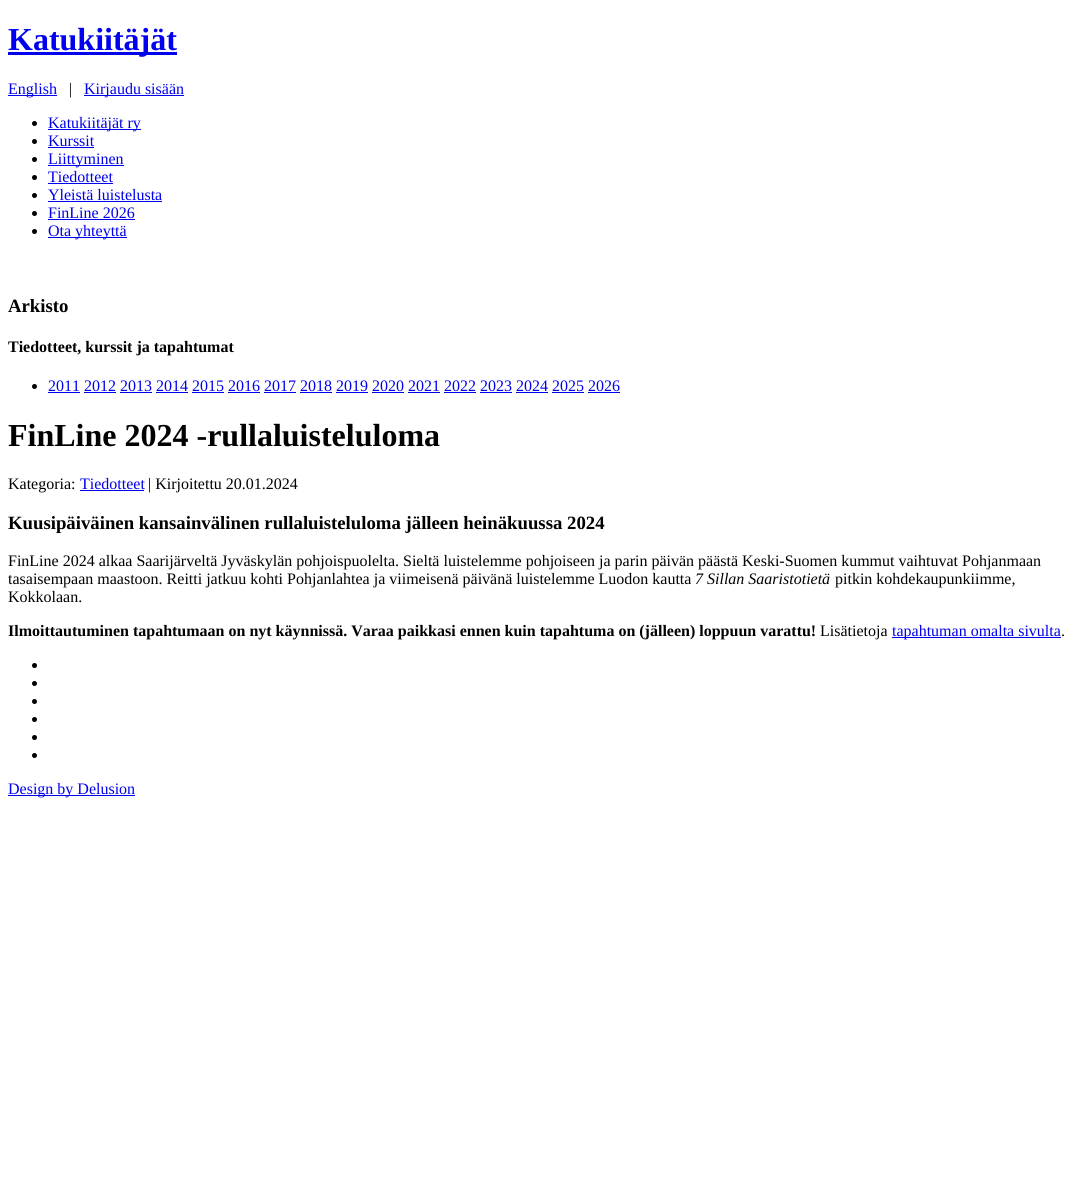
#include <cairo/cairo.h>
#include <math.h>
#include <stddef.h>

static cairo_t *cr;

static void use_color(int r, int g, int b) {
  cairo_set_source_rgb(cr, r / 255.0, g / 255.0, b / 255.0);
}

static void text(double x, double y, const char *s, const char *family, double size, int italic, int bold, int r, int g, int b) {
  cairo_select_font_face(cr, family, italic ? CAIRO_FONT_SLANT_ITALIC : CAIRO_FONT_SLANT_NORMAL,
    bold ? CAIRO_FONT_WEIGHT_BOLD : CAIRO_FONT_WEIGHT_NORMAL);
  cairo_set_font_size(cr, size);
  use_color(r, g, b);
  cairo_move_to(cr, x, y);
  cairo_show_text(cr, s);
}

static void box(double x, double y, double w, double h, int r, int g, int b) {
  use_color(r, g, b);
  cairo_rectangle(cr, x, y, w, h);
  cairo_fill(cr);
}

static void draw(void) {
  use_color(255, 255, 255);
  cairo_paint(cr);
  box(8, 52, 169, 3, 0, 0, 238);
  box(8, 95, 49, 1, 0, 0, 238);
  box(84, 95, 100, 1, 0, 0, 238);
  use_color(0, 0, 0);
  cairo_arc(cr, 34.5, 123.5, 2.5, 0, 2 * M_PI);
  cairo_fill(cr);
  box(48, 129, 93, 1, 0, 0, 238);
  use_color(0, 0, 0);
  cairo_arc(cr, 34.5, 141.5, 2.5, 0, 2 * M_PI);
  cairo_fill(cr);
  box(48, 147, 46, 1, 0, 0, 238);
  use_color(0, 0, 0);
  cairo_arc(cr, 34.5, 159.5, 2.5, 0, 2 * M_PI);
  cairo_fill(cr);
  box(48, 165, 76, 1, 0, 0, 238);
  use_color(0, 0, 0);
  cairo_arc(cr, 34.5, 177.5, 2.5, 0, 2 * M_PI);
  cairo_fill(cr);
  box(48, 183, 65, 1, 0, 0, 238);
  use_color(0, 0, 0);
  cairo_arc(cr, 34.5, 195.5, 2.5, 0, 2 * M_PI);
  cairo_fill(cr);
  box(48, 201, 114, 1, 0, 0, 238);
  use_color(0, 0, 0);
  cairo_arc(cr, 34.5, 213.5, 2.5, 0, 2 * M_PI);
  cairo_fill(cr);
  box(48, 219, 87, 1, 0, 0, 238);
  use_color(0, 0, 0);
  cairo_arc(cr, 34.5, 231.5, 2.5, 0, 2 * M_PI);
  cairo_fill(cr);
  box(48, 237, 79, 1, 0, 0, 238);
  use_color(0, 0, 0);
  cairo_arc(cr, 34.5, 386.5, 2.5, 0, 2 * M_PI);
  cairo_fill(cr);
  box(48, 392, 32, 1, 0, 0, 238);
  box(84, 392, 32, 1, 0, 0, 238);
  box(120, 392, 32, 1, 0, 0, 238);
  box(156, 392, 32, 1, 0, 0, 238);
  box(192, 392, 32, 1, 0, 0, 238);
  box(228, 392, 32, 1, 0, 0, 238);
  box(264, 392, 32, 1, 0, 0, 238);
  box(300, 392, 32, 1, 0, 0, 238);
  box(336, 392, 32, 1, 0, 0, 238);
  box(372, 392, 32, 1, 0, 0, 238);
  box(408, 392, 32, 1, 0, 0, 238);
  box(444, 392, 32, 1, 0, 0, 238);
  box(480, 392, 32, 1, 0, 0, 238);
  box(516, 392, 32, 1, 0, 0, 238);
  box(552, 392, 32, 1, 0, 0, 238);
  box(588, 392, 32, 1, 0, 0, 238);
  box(80, 490, 64, 1, 0, 0, 238);
  box(892, 637, 169, 1, 0, 0, 238);
  use_color(0, 0, 0);
  cairo_arc(cr, 34.5, 665.5, 2.5, 0, 2 * M_PI);
  cairo_fill(cr);
  cairo_arc(cr, 34.5, 683.5, 2.5, 0, 2 * M_PI);
  cairo_fill(cr);
  cairo_arc(cr, 34.5, 701.5, 2.5, 0, 2 * M_PI);
  cairo_fill(cr);
  cairo_arc(cr, 34.5, 719.5, 2.5, 0, 2 * M_PI);
  cairo_fill(cr);
  cairo_arc(cr, 34.5, 737.5, 2.5, 0, 2 * M_PI);
  cairo_fill(cr);
  cairo_arc(cr, 34.5, 755.5, 2.5, 0, 2 * M_PI);
  cairo_fill(cr);
  box(8, 795, 127, 1, 0, 0, 238);
  text(8, 50, "Katukiitäjät", "Liberation Serif", 32, 0, 1, 0, 0, 238);
  text(8, 94, "English", "Liberation Serif", 16, 0, 0, 0, 0, 238);
  text(69, 94, "|", "Liberation Serif", 16, 0, 0, 0, 0, 0);
  text(84, 94, "Kirjaudu sisään", "Liberation Serif", 16, 0, 0, 0, 0, 238);
  text(48, 128, "Katukiitäjät ry", "Liberation Serif", 16, 0, 0, 0, 0, 238);
  text(48, 146, "Kurssit", "Liberation Serif", 16, 0, 0, 0, 0, 238);
  text(48, 164, "Liittyminen", "Liberation Serif", 16, 0, 0, 0, 0, 238);
  text(48, 182, "Tiedotteet", "Liberation Serif", 16, 0, 0, 0, 0, 238);
  text(48, 200, "Yleistä luistelusta", "Liberation Serif", 16, 0, 0, 0, 0, 238);
  text(48, 218, "FinLine 2026", "Liberation Serif", 16, 0, 0, 0, 0, 238);
  text(48, 236, "Ota yhteyttä", "Liberation Serif", 16, 0, 0, 0, 0, 238);
  text(8, 312, "Arkisto", "Liberation Serif", 18.75, 0, 1, 0, 0, 0);
  text(8, 352, "Tiedotteet, kurssit ja tapahtumat", "Liberation Serif", 16, 0, 1, 0, 0, 0);
  text(48, 391, "2011 2012 2013 2014 2015 2016 2017 2018 2019 2020 2021 2022 2023 2024 2025 2026", "Liberation Serif", 16, 0, 0, 0, 0, 238);
  text(8, 446, "FinLine 2024 -rullaluisteluloma", "Liberation Serif", 32, 0, 1, 0, 0, 0);
  text(8, 489, "Kategoria:", "Liberation Serif", 16, 0, 0, 0, 0, 0);
  text(80, 489, "Tiedotteet", "Liberation Serif", 16, 0, 0, 0, 0, 238);
  text(148, 489, "| Kirjoitettu 20.01.2024", "Liberation Serif", 16, 0, 0, 0, 0, 0);
  text(8, 529, "Kuusipäiväinen kansainvälinen rullaluisteluloma jälleen heinäkuussa 2024", "Liberation Serif", 18.75, 0, 1, 0, 0, 0);
  text(8, 566, "FinLine 2024 alkaa Saarijärveltä Jyväskylän pohjoispuolelta. Sieltä luistelemme pohjoiseen ja parin päivän päästä Keski-Suomen kummut vaihtuvat Pohjanmaan", "Liberation Serif", 16, 0, 0, 0, 0, 0);
  text(8, 584, "tasaisempaan maastoon. Reitti jatkuu kohti Pohjanlahtea ja viimeisenä päivänä luistelemme Luodon kautta", "Liberation Serif", 16, 0, 0, 0, 0, 0);
  text(695, 584, "7 Sillan Saaristotietä", "Liberation Serif", 16, 1, 0, 0, 0, 0);
  text(835, 584, "pitkin kohdekaupunkiimme,", "Liberation Serif", 16, 0, 0, 0, 0, 0);
  text(8, 602, "Kokkolaan.", "Liberation Serif", 16, 0, 0, 0, 0, 0);
  text(8, 636, "Ilmoittautuminen tapahtumaan on nyt käynnissä. Varaa paikkasi ennen kuin tapahtuma on (jälleen) loppuun varattu!", "Liberation Serif", 16, 0, 1, 0, 0, 0);
  text(820, 636, "Lisätietoja", "Liberation Serif", 16, 0, 0, 0, 0, 0);
  text(892, 636, "tapahtuman omalta sivulta", "Liberation Serif", 16, 0, 0, 0, 0, 238);
  text(1061, 636, ".", "Liberation Serif", 16, 0, 0, 0, 0, 0);
  text(8, 794, "Design by Delusion", "Liberation Serif", 16, 0, 0, 0, 0, 238);
}

int main(void) {
  cairo_surface_t *surface = cairo_image_surface_create(CAIRO_FORMAT_RGB24, 1091, 1177);
  cr = cairo_create(surface);
  cairo_font_options_t *options = cairo_font_options_create();
  cairo_font_options_set_hint_metrics(options, CAIRO_HINT_METRICS_OFF);
  cairo_font_options_set_hint_style(options, CAIRO_HINT_STYLE_NONE);
  cairo_set_font_options(cr, options);
  cairo_set_miter_limit(cr, 4);
  draw();
  cairo_surface_write_to_png(surface, "out.png");
  cairo_font_options_destroy(options);
  cairo_destroy(cr);
  cairo_surface_destroy(surface);
  return 0;
}
